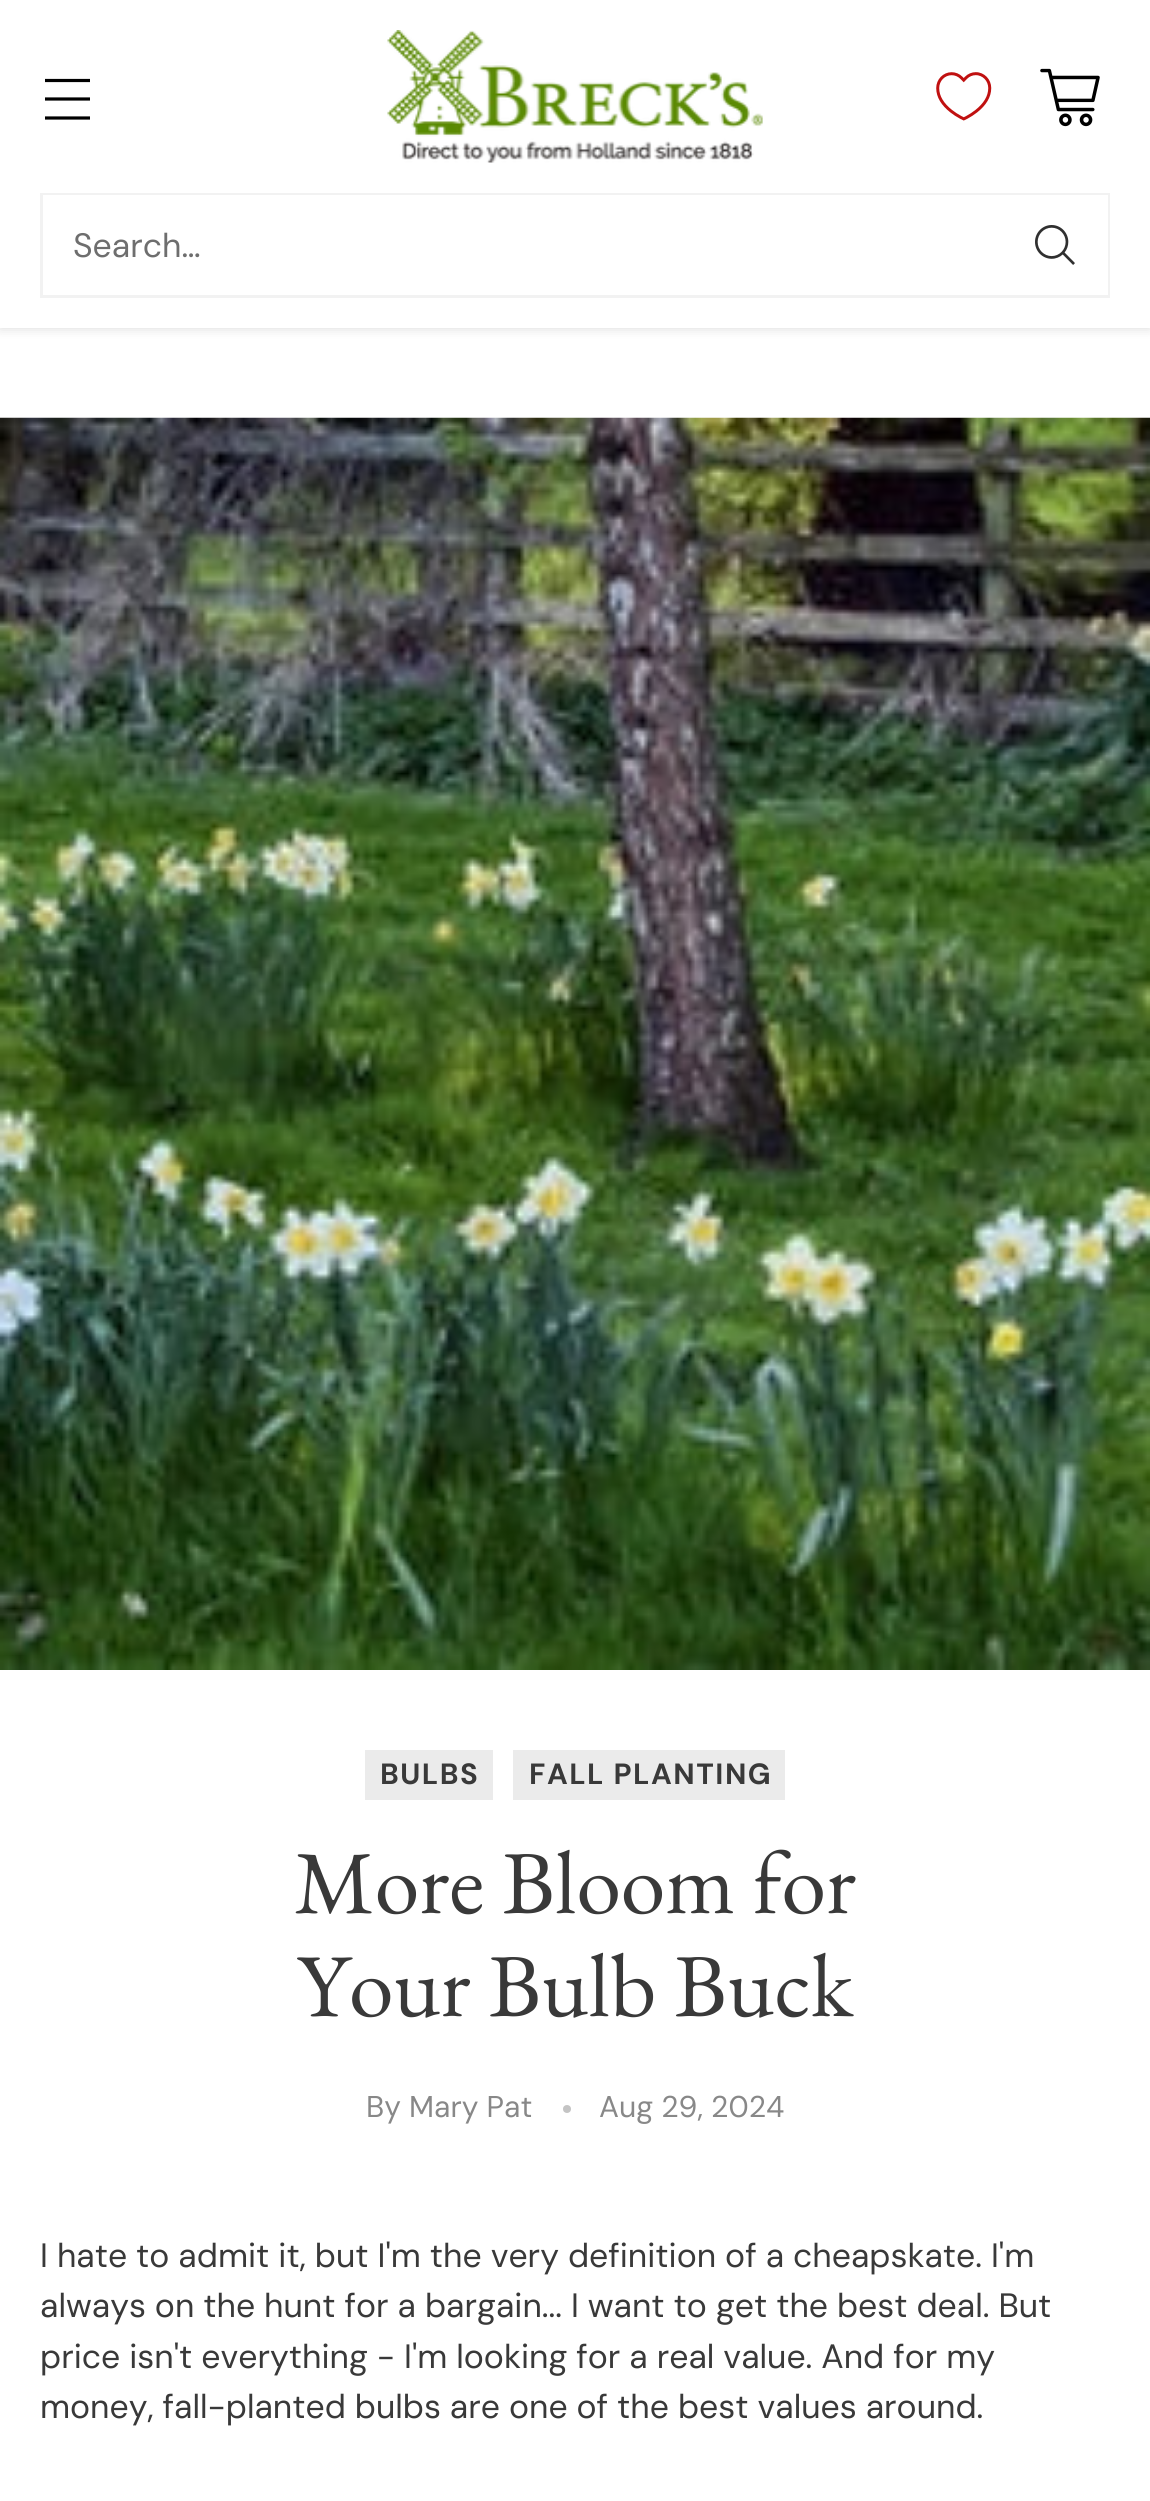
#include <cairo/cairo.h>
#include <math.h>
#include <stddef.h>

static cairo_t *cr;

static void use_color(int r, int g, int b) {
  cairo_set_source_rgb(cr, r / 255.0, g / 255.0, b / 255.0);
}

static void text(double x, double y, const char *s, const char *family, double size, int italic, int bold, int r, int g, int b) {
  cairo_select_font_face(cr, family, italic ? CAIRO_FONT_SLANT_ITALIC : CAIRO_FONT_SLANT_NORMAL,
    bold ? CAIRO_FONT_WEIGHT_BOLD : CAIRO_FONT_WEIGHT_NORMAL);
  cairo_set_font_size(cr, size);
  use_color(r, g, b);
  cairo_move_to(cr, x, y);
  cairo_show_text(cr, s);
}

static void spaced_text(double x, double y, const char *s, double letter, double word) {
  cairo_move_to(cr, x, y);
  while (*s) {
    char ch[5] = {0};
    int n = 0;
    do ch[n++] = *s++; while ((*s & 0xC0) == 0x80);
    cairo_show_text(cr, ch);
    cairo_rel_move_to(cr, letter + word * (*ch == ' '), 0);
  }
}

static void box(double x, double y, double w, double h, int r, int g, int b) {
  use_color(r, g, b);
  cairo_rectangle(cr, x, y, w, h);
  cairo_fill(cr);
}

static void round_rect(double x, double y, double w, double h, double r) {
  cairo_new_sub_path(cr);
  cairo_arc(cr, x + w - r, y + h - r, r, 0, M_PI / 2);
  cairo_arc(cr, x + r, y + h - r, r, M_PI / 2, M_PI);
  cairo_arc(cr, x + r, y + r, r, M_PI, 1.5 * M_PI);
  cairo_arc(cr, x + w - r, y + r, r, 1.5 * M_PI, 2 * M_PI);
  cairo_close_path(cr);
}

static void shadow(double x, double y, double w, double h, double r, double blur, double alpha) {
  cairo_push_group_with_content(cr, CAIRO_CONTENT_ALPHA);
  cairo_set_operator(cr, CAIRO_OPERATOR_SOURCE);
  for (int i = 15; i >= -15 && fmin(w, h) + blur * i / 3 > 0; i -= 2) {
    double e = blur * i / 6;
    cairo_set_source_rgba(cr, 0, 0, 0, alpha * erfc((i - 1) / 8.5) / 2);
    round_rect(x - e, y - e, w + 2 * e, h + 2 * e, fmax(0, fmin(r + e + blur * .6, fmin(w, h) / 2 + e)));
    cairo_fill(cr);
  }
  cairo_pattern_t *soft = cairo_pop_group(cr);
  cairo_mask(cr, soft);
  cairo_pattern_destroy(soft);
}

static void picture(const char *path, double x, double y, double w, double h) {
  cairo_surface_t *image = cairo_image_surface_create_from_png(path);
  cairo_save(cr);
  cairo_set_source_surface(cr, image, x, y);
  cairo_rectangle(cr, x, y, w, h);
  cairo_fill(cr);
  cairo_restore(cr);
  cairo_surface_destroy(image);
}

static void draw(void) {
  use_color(255, 255, 255);
  cairo_paint(cr);
  use_color(0, 0, 0);
  shadow(0, 0, 1150, 328, 0, 6, 0.15);
  box(0, 0, 1150, 328, 255, 255, 255);
  cairo_new_path(cr);
  cairo_move_to(cr, 45, 99);
  cairo_line_to(cr, 90, 99);
  cairo_move_to(cr, 45, 80.5);
  cairo_line_to(cr, 90, 80.5);
  cairo_move_to(cr, 45, 118);
  cairo_line_to(cr, 90, 118);
  use_color(0, 0, 0);
  cairo_set_line_width(cr, 3.2);
  cairo_stroke(cr);
  picture("img_01.png", 387, 30, 376, 133);
  picture("img_02.png", 936, 72, 56, 49);
  picture("img_03.png", 1040, 68, 60, 59);
  cairo_rectangle(cr, 41.5, 194.5, 1067, 102);
  use_color(242, 242, 242);
  cairo_set_line_width(cr, 3);
  cairo_stroke(cr);
  box(43, 195, 1065, 100, 255, 255, 255);
  picture("img_04.png", 1035, 225, 40, 40);
  picture("img_05.png", 0, 417, 1150, 1253);
  box(365, 1750, 128, 50, 235, 235, 235);
  box(513, 1750, 272, 50, 235, 235, 235);
  use_color(196, 196, 196);
  cairo_arc(cr, 567, 2109, 4, 0, 2 * M_PI);
  cairo_fill(cr);
  text(73, 257, "Search…", "DM Sans", 33.75, 0, 0, 110, 110, 110);
  cairo_select_font_face(cr, "DM Sans", CAIRO_FONT_SLANT_NORMAL, CAIRO_FONT_WEIGHT_BOLD);
  cairo_set_font_size(cr, 29.25);
  use_color(57, 57, 57);
  spaced_text(380, 1784, "BULBS", 1.5, 0);
  spaced_text(529, 1784, "FALL PLANTING", 1.5, 0);
  text(294, 1913, "More Bloom for", "EB Garamond", 89.75, 0, 0, 57, 57, 57);
  text(297, 2016, "Your Bulb Buck", "EB Garamond", 89.75, 0, 0, 57, 57, 57);
  text(366, 2117, "By", "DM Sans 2", 30, 0, 0, 136, 136, 136);
  text(409, 2117, "Mary Pat", "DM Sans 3", 30, 0, 0, 136, 136, 136);
  text(599, 2117, "Aug 29, 2024", "DM Sans 3", 30, 0, 0, 136, 136, 136);
  text(40, 2267, "I hate to admit it, but I'm the very definition of a cheapskate. I'm", "DM Sans", 33.75, 0, 0, 57, 57, 57);
  text(40, 2317, "always on the hunt for a bargain... I want to get the best deal. But", "DM Sans", 33.75, 0, 0, 57, 57, 57);
  text(40, 2368, "price isn't everything - I'm looking for a real value. And for my", "DM Sans", 33.75, 0, 0, 57, 57, 57);
  text(40, 2418, "money, fall-planted bulbs are one of the best values around.", "DM Sans", 33.75, 0, 0, 57, 57, 57);
}

int main(void) {
  cairo_surface_t *surface = cairo_image_surface_create(CAIRO_FORMAT_RGB24, 1150, 2501);
  cr = cairo_create(surface);
  cairo_font_options_t *options = cairo_font_options_create();
  cairo_font_options_set_hint_metrics(options, CAIRO_HINT_METRICS_OFF);
  cairo_font_options_set_hint_style(options, CAIRO_HINT_STYLE_NONE);
  cairo_set_font_options(cr, options);
  cairo_set_miter_limit(cr, 4);
  draw();
  cairo_surface_write_to_png(surface, "out.png");
  cairo_font_options_destroy(options);
  cairo_destroy(cr);
  cairo_surface_destroy(surface);
  return 0;
}
